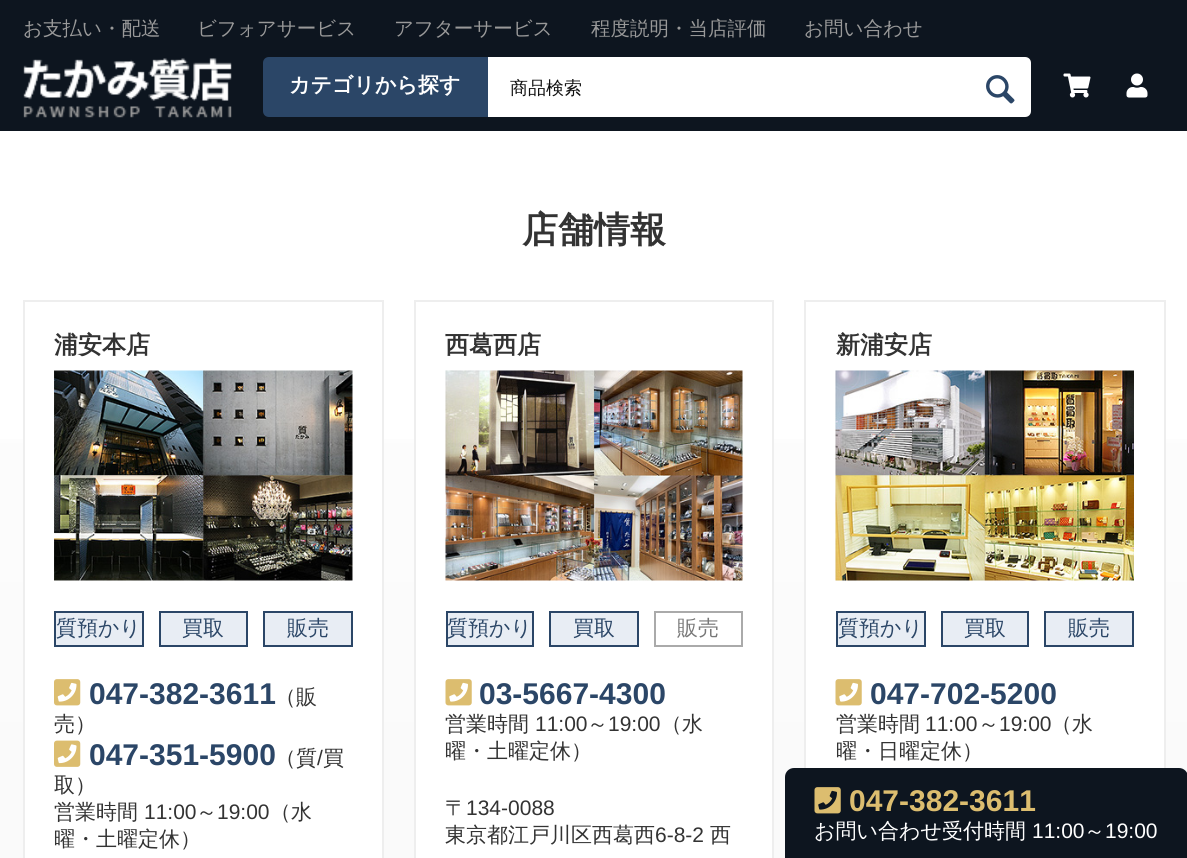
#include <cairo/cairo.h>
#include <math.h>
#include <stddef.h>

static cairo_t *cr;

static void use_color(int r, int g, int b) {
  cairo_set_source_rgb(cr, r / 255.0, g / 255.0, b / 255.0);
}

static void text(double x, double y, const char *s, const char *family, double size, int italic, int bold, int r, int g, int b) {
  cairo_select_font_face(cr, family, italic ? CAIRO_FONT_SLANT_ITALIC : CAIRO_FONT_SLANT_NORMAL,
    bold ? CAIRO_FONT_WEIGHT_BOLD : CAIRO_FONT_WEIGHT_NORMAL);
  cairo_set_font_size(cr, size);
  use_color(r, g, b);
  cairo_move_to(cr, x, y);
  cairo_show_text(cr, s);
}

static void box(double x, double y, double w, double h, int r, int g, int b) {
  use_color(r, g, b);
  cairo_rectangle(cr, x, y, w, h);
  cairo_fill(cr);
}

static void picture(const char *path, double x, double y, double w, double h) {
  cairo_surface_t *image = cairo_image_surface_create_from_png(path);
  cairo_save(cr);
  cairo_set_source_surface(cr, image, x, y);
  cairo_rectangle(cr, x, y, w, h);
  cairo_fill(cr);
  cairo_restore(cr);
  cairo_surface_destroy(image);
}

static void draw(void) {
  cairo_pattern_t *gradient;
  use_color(255, 255, 255);
  cairo_paint(cr);
  box(0, 0, 1187, 131, 13, 21, 31);
  picture("img_01.png", 23, 58, 209, 60);
  picture("img_02.png", 1063, 73, 28, 25);
  picture("img_03.png", 1126, 73, 22, 25);
  use_color(43, 70, 103);
  cairo_new_path(cr);
  cairo_move_to(cr, 269, 57);
  cairo_line_to(cr, 488, 57);
  cairo_line_to(cr, 488, 117);
  cairo_line_to(cr, 269, 117);
  cairo_curve_to(cr, 265.5, 117, 263, 114.5, 263, 111);
  cairo_line_to(cr, 263, 63);
  cairo_curve_to(cr, 263, 59.5, 265.5, 57, 269, 57);
  cairo_close_path(cr);
  cairo_fill(cr);
  box(488, 57, 490, 60, 255, 255, 255);
  cairo_new_path(cr);
  cairo_move_to(cr, 978, 57);
  cairo_line_to(cr, 1025, 57);
  cairo_curve_to(cr, 1028.5, 57, 1031, 59.5, 1031, 63);
  cairo_line_to(cr, 1031, 111);
  cairo_curve_to(cr, 1031, 114.5, 1028.5, 117, 1025, 117);
  cairo_line_to(cr, 978, 117);
  cairo_close_path(cr);
  cairo_fill(cr);
  picture("img_04.png", 986, 75, 29, 29);
  gradient = cairo_pattern_create_linear(594, 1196, 594, 95);
  cairo_pattern_add_color_stop_rgba(gradient, 0, 0.969, 0.969, 0.969, 1);
  cairo_pattern_add_color_stop_rgba(gradient, 1, 1, 1, 1, 1);
  cairo_set_source(cr, gradient);
  cairo_pattern_destroy(gradient);
  cairo_rectangle(cr, 0, 439, 1187, 419);
  cairo_fill(cr);
  box(25, 439, 357, 419, 255, 255, 255);
  cairo_rectangle(cr, 24, 301, 359, 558);
  use_color(238, 238, 238);
  cairo_stroke(cr);
  picture("img_05.png", 54, 370, 299, 211);
  use_color(232, 237, 244);
  cairo_rectangle(cr, 55, 612, 88, 34);
  cairo_fill_preserve(cr);
  use_color(43, 70, 103);
  cairo_stroke(cr);
  use_color(232, 237, 244);
  cairo_rectangle(cr, 160, 612, 87, 34);
  cairo_fill_preserve(cr);
  use_color(43, 70, 103);
  cairo_stroke(cr);
  use_color(232, 237, 244);
  cairo_rectangle(cr, 264, 612, 88, 34);
  cairo_fill_preserve(cr);
  use_color(43, 70, 103);
  cairo_stroke(cr);
  picture("img_06.png", 54, 679, 27, 27);
  picture("img_07.png", 54, 740, 27, 27);
  box(416, 439, 356, 419, 255, 255, 255);
  cairo_rectangle(cr, 415, 301, 358, 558);
  use_color(238, 238, 238);
  cairo_stroke(cr);
  picture("img_08.png", 445, 370, 298, 211);
  use_color(232, 237, 244);
  cairo_rectangle(cr, 447, 612, 86, 34);
  cairo_fill_preserve(cr);
  use_color(43, 70, 103);
  cairo_stroke(cr);
  use_color(232, 237, 244);
  cairo_rectangle(cr, 550, 612, 88, 34);
  cairo_fill_preserve(cr);
  use_color(43, 70, 103);
  cairo_stroke(cr);
  cairo_rectangle(cr, 655, 612, 87, 34);
  use_color(170, 170, 170);
  cairo_stroke(cr);
  picture("img_09.png", 445, 679, 27, 27);
  box(806, 439, 358, 329, 255, 255, 255);
  cairo_rectangle(cr, 805, 301, 360, 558);
  use_color(238, 238, 238);
  cairo_stroke(cr);
  picture("img_10.png", 835, 370, 299, 211);
  use_color(232, 237, 244);
  cairo_rectangle(cr, 837, 612, 88, 34);
  cairo_fill_preserve(cr);
  use_color(43, 70, 103);
  cairo_stroke(cr);
  use_color(232, 237, 244);
  cairo_rectangle(cr, 942, 612, 86, 34);
  cairo_fill_preserve(cr);
  use_color(43, 70, 103);
  cairo_stroke(cr);
  use_color(232, 237, 244);
  cairo_rectangle(cr, 1045, 612, 88, 34);
  cairo_fill_preserve(cr);
  use_color(43, 70, 103);
  cairo_stroke(cr);
  picture("img_09.png", 835, 679, 27, 27);
  use_color(13, 21, 31);
  cairo_new_path(cr);
  cairo_move_to(cr, 794, 768);
  cairo_line_to(cr, 1179, 768);
  cairo_curve_to(cr, 1184, 768, 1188, 772, 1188, 777);
  cairo_line_to(cr, 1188, 858);
  cairo_line_to(cr, 785, 858);
  cairo_line_to(cr, 785, 777);
  cairo_curve_to(cr, 785, 772, 789, 768, 794, 768);
  cairo_close_path(cr);
  cairo_fill(cr);
  picture("img_11.png", 814, 787, 27, 27);
  text(23, 35, "お支払い・配送", "WenQuanYi Zen Hei Medium", 19.5, 0, 0, 153, 153, 153);
  text(197, 35, "ビフォアサービス", "WenQuanYi Zen Hei Medium", 19.5, 0, 0, 153, 153, 153);
  text(394, 35, "アフターサービス", "WenQuanYi Zen Hei Medium", 19.5, 0, 0, 153, 153, 153);
  text(591, 35, "程度説明・当店評価", "WenQuanYi Zen Hei Medium", 19.5, 0, 0, 153, 153, 153);
  text(804, 35, "お問い合わせ", "WenQuanYi Zen Hei Medium", 19.5, 0, 0, 153, 153, 153);
  text(289, 92, "カテゴリから探す", "WenQuanYi Zen Hei", 21, 0, 1, 255, 255, 255);
  text(510, 94, "商品検索", "WenQuanYi Zen Hei Medium", 18, 0, 0, 17, 17, 17);
  text(522, 242, "店舗情報", "WenQuanYi Zen Hei", 36, 0, 1, 51, 51, 51);
  text(54, 353, "浦安本店", "WenQuanYi Zen Hei", 24, 0, 1, 51, 51, 51);
  text(56, 635, "質預かり", "WenQuanYi Zen Hei Medium", 21, 0, 0, 43, 70, 103);
  text(182, 635, "買取", "WenQuanYi Zen Hei Medium", 21, 0, 0, 43, 70, 103);
  text(287, 635, "販売", "WenQuanYi Zen Hei Medium", 21, 0, 0, 43, 70, 103);
  text(89, 704, "047-382-3611", "Liberation Sans", 30, 0, 1, 43, 70, 103);
  text(275, 704, "（販", "WenQuanYi Zen Hei Medium", 21, 0, 0, 51, 51, 51);
  text(54, 731, "売）", "WenQuanYi Zen Hei Medium", 21, 0, 0, 51, 51, 51);
  text(89, 765, "047-351-5900", "Liberation Sans", 30, 0, 1, 43, 70, 103);
  text(275, 765, "（質", "WenQuanYi Zen Hei Medium", 21, 0, 0, 51, 51, 51);
  text(317, 765, "/", "Liberation Sans", 21, 0, 0, 51, 51, 51);
  text(323, 765, "買", "WenQuanYi Zen Hei Medium", 21, 0, 0, 51, 51, 51);
  text(54, 792, "取）", "WenQuanYi Zen Hei Medium", 21, 0, 0, 51, 51, 51);
  text(54, 819, "営業時間", "WenQuanYi Zen Hei Medium", 21, 0, 0, 51, 51, 51);
  text(144, 819, "11:00", "Liberation Sans", 21, 0, 0, 51, 51, 51);
  text(196, 819, "～", "WenQuanYi Zen Hei Medium", 21, 0, 0, 51, 51, 51);
  text(217, 819, "19:00", "Liberation Sans", 21, 0, 0, 51, 51, 51);
  text(270, 819, "（水", "WenQuanYi Zen Hei Medium", 21, 0, 0, 51, 51, 51);
  text(54, 846, "曜・土曜定休）", "WenQuanYi Zen Hei Medium", 21, 0, 0, 51, 51, 51);
  text(445, 353, "西葛西店", "WenQuanYi Zen Hei", 24, 0, 1, 51, 51, 51);
  text(447, 635, "質預かり", "WenQuanYi Zen Hei Medium", 21, 0, 0, 43, 70, 103);
  text(573, 635, "買取", "WenQuanYi Zen Hei Medium", 21, 0, 0, 43, 70, 103);
  text(677, 635, "販売", "WenQuanYi Zen Hei Medium", 21, 0, 0, 119, 119, 119);
  text(479, 704, "03-5667-4300", "Liberation Sans", 30, 0, 1, 43, 70, 103);
  text(445, 731, "営業時間", "WenQuanYi Zen Hei Medium", 21, 0, 0, 51, 51, 51);
  text(535, 731, "11:00", "Liberation Sans", 21, 0, 0, 51, 51, 51);
  text(587, 731, "～", "WenQuanYi Zen Hei Medium", 21, 0, 0, 51, 51, 51);
  text(608, 731, "19:00", "Liberation Sans", 21, 0, 0, 51, 51, 51);
  text(661, 731, "（水", "WenQuanYi Zen Hei Medium", 21, 0, 0, 51, 51, 51);
  text(445, 758, "曜・土曜定休）", "WenQuanYi Zen Hei Medium", 21, 0, 0, 51, 51, 51);
  text(445, 815, "〒", "WenQuanYi Zen Hei Medium", 21, 0, 0, 51, 51, 51);
  text(466, 815, "134-0088", "Liberation Sans", 21, 0, 0, 51, 51, 51);
  text(445, 842, "東京都江戸川区西葛西", "WenQuanYi Zen Hei Medium", 21, 0, 0, 51, 51, 51);
  text(655, 842, "6-8-2", "Liberation Sans", 21, 0, 0, 51, 51, 51);
  text(710, 842, "西", "WenQuanYi Zen Hei Medium", 21, 0, 0, 51, 51, 51);
  text(836, 353, "新浦安店", "WenQuanYi Zen Hei", 24, 0, 1, 51, 51, 51);
  text(838, 635, "質預かり", "WenQuanYi Zen Hei Medium", 21, 0, 0, 43, 70, 103);
  text(964, 635, "買取", "WenQuanYi Zen Hei Medium", 21, 0, 0, 43, 70, 103);
  text(1068, 635, "販売", "WenQuanYi Zen Hei Medium", 21, 0, 0, 43, 70, 103);
  text(870, 704, "047-702-5200", "Liberation Sans", 30, 0, 1, 43, 70, 103);
  text(836, 731, "営業時間", "WenQuanYi Zen Hei Medium", 21, 0, 0, 51, 51, 51);
  text(925, 731, "11:00", "Liberation Sans", 21, 0, 0, 51, 51, 51);
  text(978, 731, "～", "WenQuanYi Zen Hei Medium", 21, 0, 0, 51, 51, 51);
  text(999, 731, "19:00", "Liberation Sans", 21, 0, 0, 51, 51, 51);
  text(1051, 731, "（水", "WenQuanYi Zen Hei Medium", 21, 0, 0, 51, 51, 51);
  text(836, 758, "曜・日曜定休）", "WenQuanYi Zen Hei Medium", 21, 0, 0, 51, 51, 51);
  text(849, 811, "047-382-3611", "Liberation Sans", 30, 0, 1, 220, 189, 111);
  text(814, 838, "お問い合わせ受付時間", "WenQuanYi Zen Hei Medium", 21, 0, 0, 255, 255, 255);
  text(1032, 838, "11:00", "Liberation Sans", 21, 0, 0, 255, 255, 255);
  text(1084, 838, "～", "WenQuanYi Zen Hei Medium", 21, 0, 0, 255, 255, 255);
  text(1105, 838, "19:00", "Liberation Sans", 21, 0, 0, 255, 255, 255);
}

int main(void) {
  cairo_surface_t *surface = cairo_image_surface_create(CAIRO_FORMAT_RGB24, 1187, 858);
  cr = cairo_create(surface);
  cairo_font_options_t *options = cairo_font_options_create();
  cairo_font_options_set_hint_metrics(options, CAIRO_HINT_METRICS_OFF);
  cairo_font_options_set_hint_style(options, CAIRO_HINT_STYLE_NONE);
  cairo_set_font_options(cr, options);
  cairo_set_miter_limit(cr, 4);
  draw();
  cairo_surface_write_to_png(surface, "out.png");
  cairo_font_options_destroy(options);
  cairo_destroy(cr);
  cairo_surface_destroy(surface);
  return 0;
}
